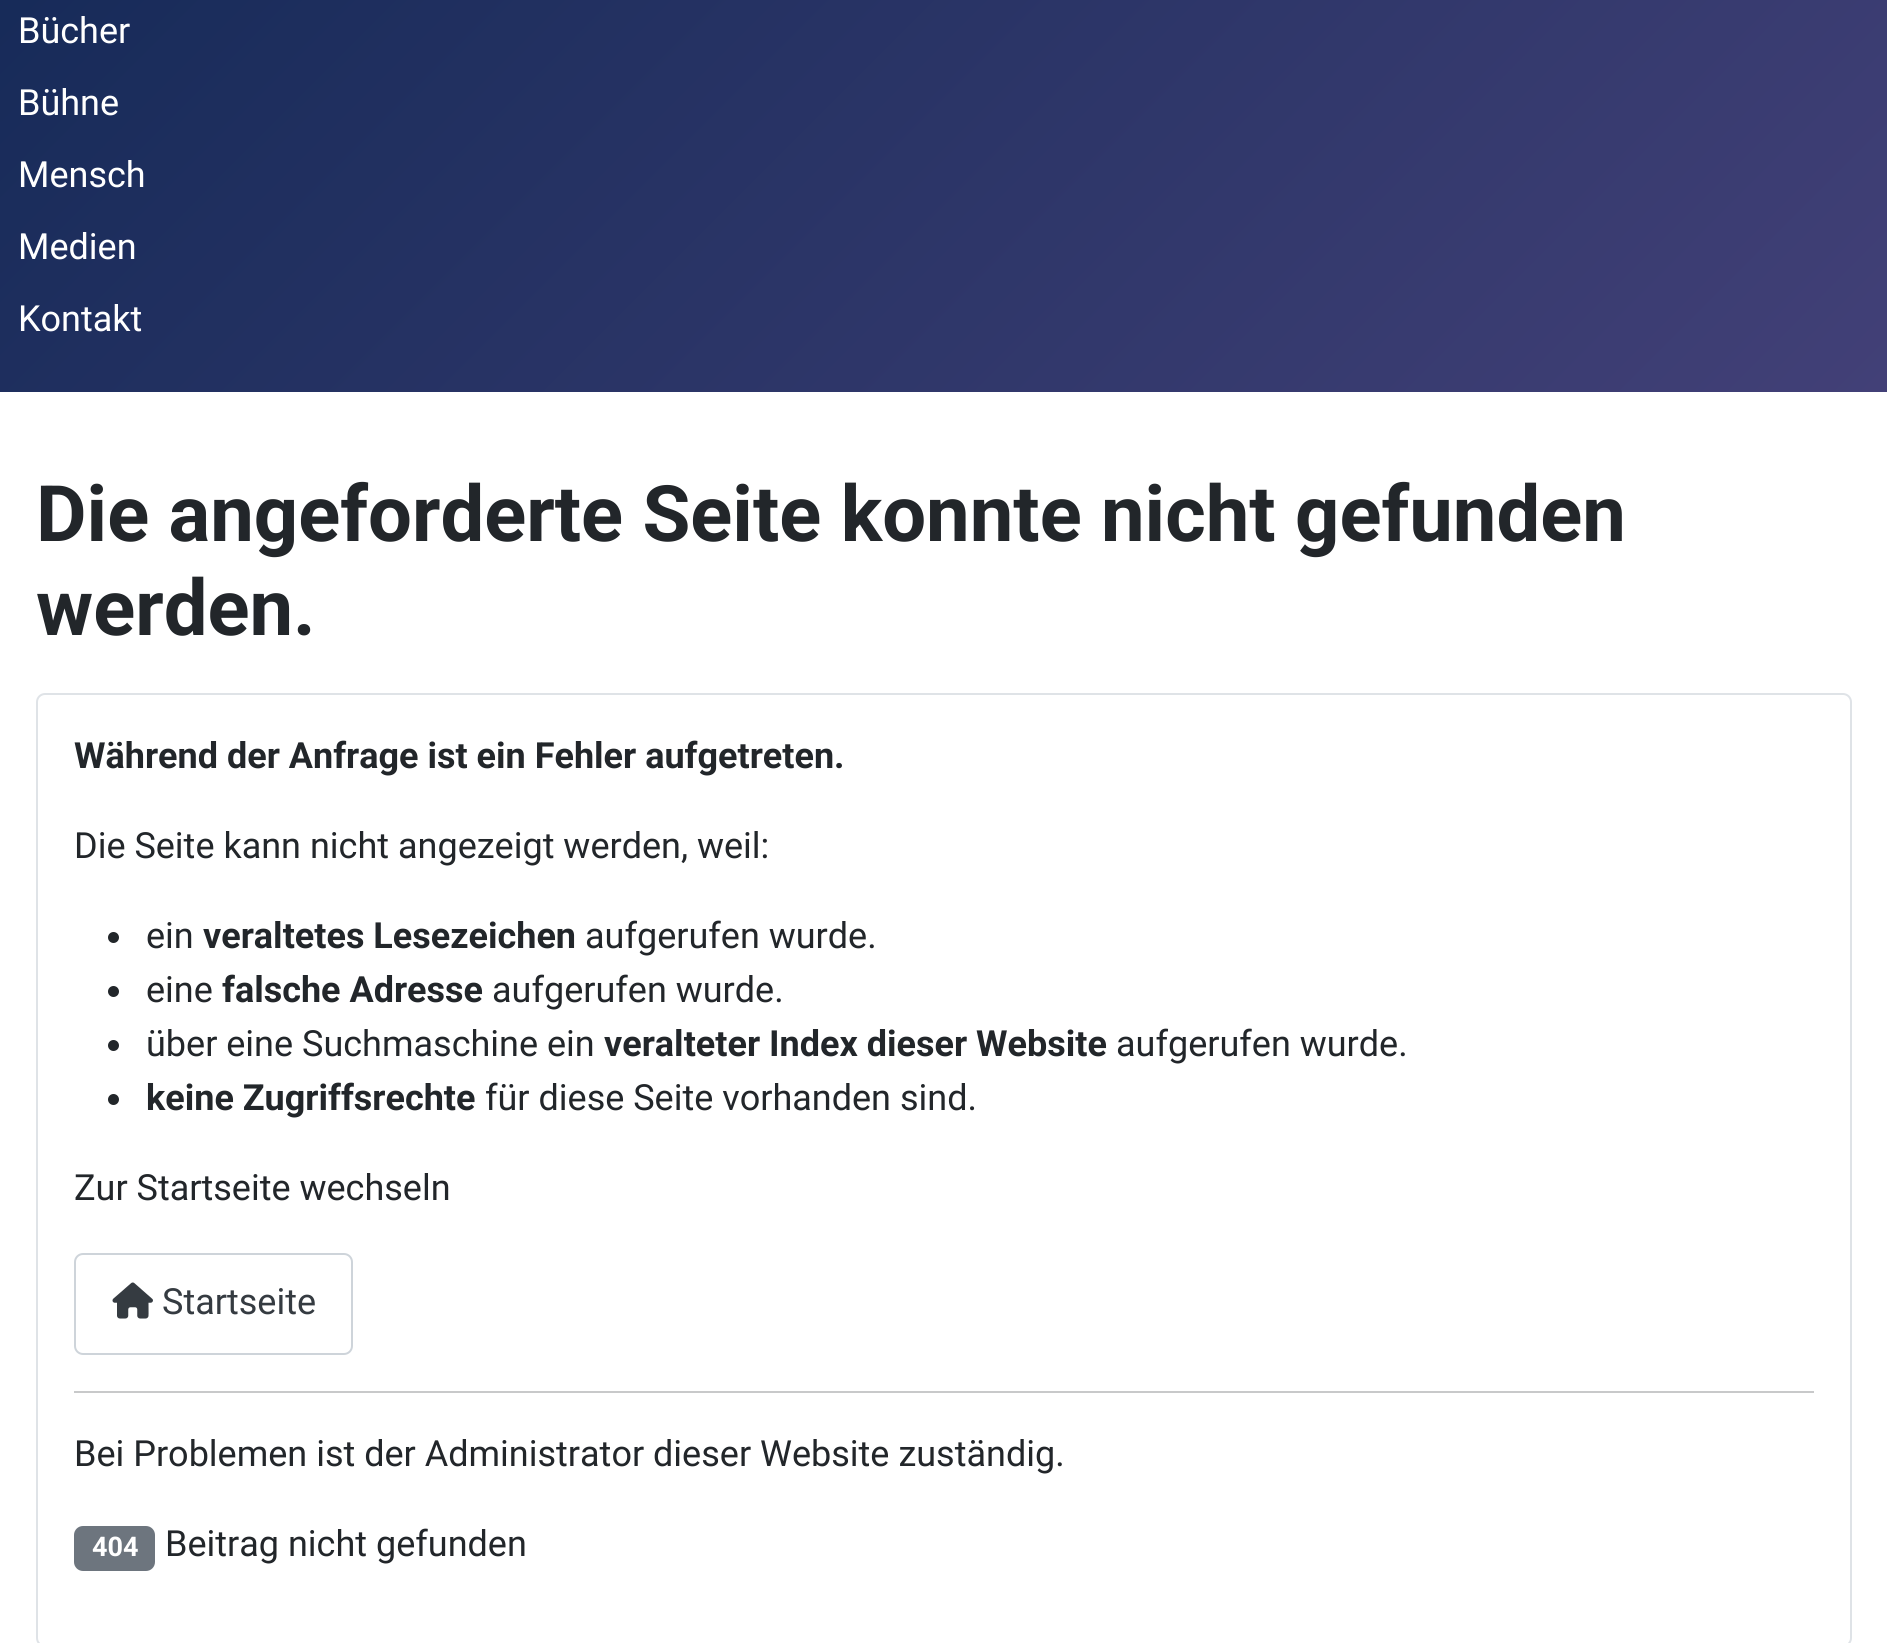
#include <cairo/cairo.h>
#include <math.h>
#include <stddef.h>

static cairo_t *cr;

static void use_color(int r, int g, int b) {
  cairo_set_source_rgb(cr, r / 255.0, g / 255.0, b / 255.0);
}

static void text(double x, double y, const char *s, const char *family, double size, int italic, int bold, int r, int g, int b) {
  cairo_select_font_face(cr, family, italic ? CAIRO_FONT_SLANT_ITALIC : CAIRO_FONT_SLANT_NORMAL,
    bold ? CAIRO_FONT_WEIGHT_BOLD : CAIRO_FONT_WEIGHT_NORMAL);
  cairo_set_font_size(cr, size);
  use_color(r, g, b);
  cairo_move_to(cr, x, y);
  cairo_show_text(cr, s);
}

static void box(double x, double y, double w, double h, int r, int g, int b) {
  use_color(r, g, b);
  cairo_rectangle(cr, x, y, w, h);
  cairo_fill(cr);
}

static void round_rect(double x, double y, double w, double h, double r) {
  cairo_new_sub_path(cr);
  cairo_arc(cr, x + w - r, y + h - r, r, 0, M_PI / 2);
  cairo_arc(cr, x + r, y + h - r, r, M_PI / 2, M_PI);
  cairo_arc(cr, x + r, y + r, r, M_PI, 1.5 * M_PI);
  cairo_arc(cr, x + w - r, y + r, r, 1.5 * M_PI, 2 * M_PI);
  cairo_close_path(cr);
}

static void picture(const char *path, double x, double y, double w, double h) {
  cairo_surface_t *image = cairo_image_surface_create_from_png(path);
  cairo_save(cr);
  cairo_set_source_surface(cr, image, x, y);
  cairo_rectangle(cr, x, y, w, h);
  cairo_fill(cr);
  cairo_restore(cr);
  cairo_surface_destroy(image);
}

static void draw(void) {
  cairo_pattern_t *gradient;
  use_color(255, 255, 255);
  cairo_paint(cr);
  gradient = cairo_pattern_create_linear(299, -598, 1589, 691);
  cairo_pattern_add_color_stop_rgba(gradient, 0, 0.067, 0.157, 0.333, 1);
  cairo_pattern_add_color_stop_rgba(gradient, 1, 0.259, 0.251, 0.467, 1);
  cairo_set_source(cr, gradient);
  cairo_pattern_destroy(gradient);
  cairo_rectangle(cr, 0, 0, 1887, 392);
  cairo_fill(cr);
  round_rect(37, 694, 1814, 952, 8);
  use_color(223, 227, 231);
  cairo_stroke(cr);
  use_color(34, 38, 42);
  cairo_arc(cr, 113.5, 937.5, 5.5, 0, 2 * M_PI);
  cairo_fill(cr);
  cairo_arc(cr, 113.5, 991.5, 5.5, 0, 2 * M_PI);
  cairo_fill(cr);
  cairo_arc(cr, 113.5, 1045.5, 5.5, 0, 2 * M_PI);
  cairo_fill(cr);
  cairo_arc(cr, 113.5, 1099.5, 5.5, 0, 2 * M_PI);
  cairo_fill(cr);
  round_rect(75, 1254, 277, 100, 8);
  use_color(206, 212, 218);
  cairo_stroke(cr);
  picture("img_01.png", 112, 1282, 41, 37);
  box(74, 1391, 1740, 2, 200, 201, 202);
  use_color(109, 117, 126);
  round_rect(74, 1526, 81, 45, 9);
  cairo_fill(cr);
  text(18, 43, "Bücher", "Roboto", 36, 0, 0, 255, 255, 255);
  text(18, 115, "Bühne", "Roboto", 36, 0, 0, 255, 255, 255);
  text(18, 187, "Mensch", "Roboto", 36, 0, 0, 255, 255, 255);
  text(18, 259, "Medien", "Roboto", 36, 0, 0, 255, 255, 255);
  text(18, 331, "Kontakt", "Roboto", 36, 0, 0, 255, 255, 255);
  text(36, 541, "Die angeforderte Seite konnte nicht gefunden", "Roboto", 77.8, 0, 1, 34, 38, 42);
  text(36, 635, "werden.", "Roboto", 77.8, 0, 1, 34, 38, 42);
  text(74, 768, "Während der Anfrage ist ein Fehler aufgetreten.", "Roboto", 36, 0, 1, 34, 38, 42);
  text(74, 858, "Die Seite kann nicht angezeigt werden, weil:", "Roboto", 36, 0, 0, 34, 38, 42);
  text(146, 948, "ein", "Roboto", 36, 0, 0, 34, 38, 42);
  text(203, 948, "veraltetes Lesezeichen", "Roboto", 36, 0, 1, 34, 38, 42);
  text(585, 948, "aufgerufen wurde.", "Roboto", 36, 0, 0, 34, 38, 42);
  text(146, 1002, "eine", "Roboto", 36, 0, 0, 34, 38, 42);
  text(222, 1002, "falsche Adresse", "Roboto", 36, 0, 1, 34, 38, 42);
  text(492, 1002, "aufgerufen wurde.", "Roboto", 36, 0, 0, 34, 38, 42);
  text(146, 1056, "über eine Suchmaschine ein", "Roboto", 36, 0, 0, 34, 38, 42);
  text(604, 1056, "veralteter Index dieser Website", "Roboto", 36, 0, 1, 34, 38, 42);
  text(1116, 1056, "aufgerufen wurde.", "Roboto", 36, 0, 0, 34, 38, 42);
  text(146, 1110, "keine Zugriffsrechte", "Roboto", 36, 0, 1, 34, 38, 42);
  text(485, 1110, "für diese Seite vorhanden sind.", "Roboto", 36, 0, 0, 34, 38, 42);
  text(74, 1200, "Zur Startseite wechseln", "Roboto", 36, 0, 0, 34, 38, 42);
  text(162, 1314, "Startseite", "Roboto", 36, 0, 0, 53, 59, 65);
  text(74, 1466, "Bei Problemen ist der Administrator dieser Website zuständig.", "Roboto", 36, 0, 0, 34, 38, 42);
  text(92, 1556, "404", "Roboto", 27, 0, 1, 255, 255, 255);
  text(165, 1556, "Beitrag nicht gefunden", "Roboto", 36, 0, 0, 34, 38, 42);
}

int main(void) {
  cairo_surface_t *surface = cairo_image_surface_create(CAIRO_FORMAT_RGB24, 1887, 1643);
  cr = cairo_create(surface);
  cairo_font_options_t *options = cairo_font_options_create();
  cairo_font_options_set_hint_metrics(options, CAIRO_HINT_METRICS_OFF);
  cairo_font_options_set_hint_style(options, CAIRO_HINT_STYLE_NONE);
  cairo_set_font_options(cr, options);
  cairo_set_miter_limit(cr, 4);
  draw();
  cairo_surface_write_to_png(surface, "out.png");
  cairo_font_options_destroy(options);
  cairo_destroy(cr);
  cairo_surface_destroy(surface);
  return 0;
}
